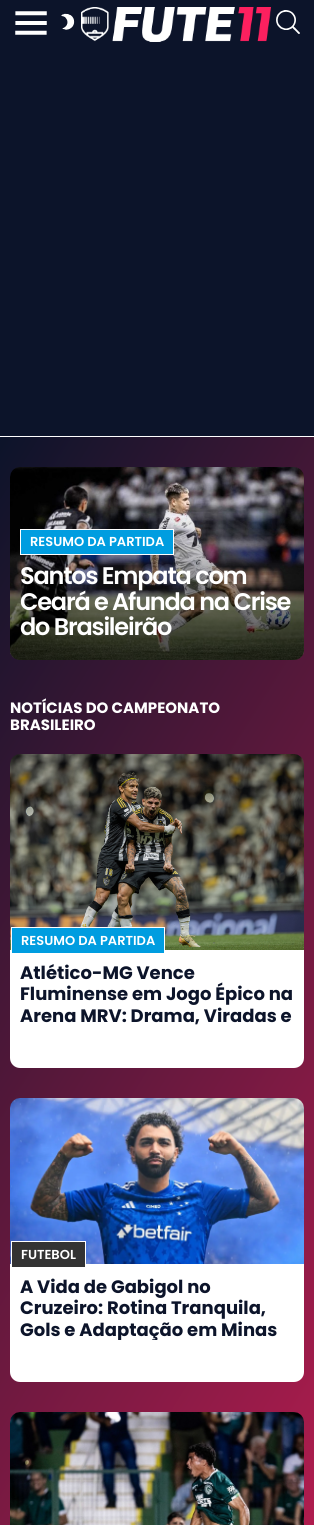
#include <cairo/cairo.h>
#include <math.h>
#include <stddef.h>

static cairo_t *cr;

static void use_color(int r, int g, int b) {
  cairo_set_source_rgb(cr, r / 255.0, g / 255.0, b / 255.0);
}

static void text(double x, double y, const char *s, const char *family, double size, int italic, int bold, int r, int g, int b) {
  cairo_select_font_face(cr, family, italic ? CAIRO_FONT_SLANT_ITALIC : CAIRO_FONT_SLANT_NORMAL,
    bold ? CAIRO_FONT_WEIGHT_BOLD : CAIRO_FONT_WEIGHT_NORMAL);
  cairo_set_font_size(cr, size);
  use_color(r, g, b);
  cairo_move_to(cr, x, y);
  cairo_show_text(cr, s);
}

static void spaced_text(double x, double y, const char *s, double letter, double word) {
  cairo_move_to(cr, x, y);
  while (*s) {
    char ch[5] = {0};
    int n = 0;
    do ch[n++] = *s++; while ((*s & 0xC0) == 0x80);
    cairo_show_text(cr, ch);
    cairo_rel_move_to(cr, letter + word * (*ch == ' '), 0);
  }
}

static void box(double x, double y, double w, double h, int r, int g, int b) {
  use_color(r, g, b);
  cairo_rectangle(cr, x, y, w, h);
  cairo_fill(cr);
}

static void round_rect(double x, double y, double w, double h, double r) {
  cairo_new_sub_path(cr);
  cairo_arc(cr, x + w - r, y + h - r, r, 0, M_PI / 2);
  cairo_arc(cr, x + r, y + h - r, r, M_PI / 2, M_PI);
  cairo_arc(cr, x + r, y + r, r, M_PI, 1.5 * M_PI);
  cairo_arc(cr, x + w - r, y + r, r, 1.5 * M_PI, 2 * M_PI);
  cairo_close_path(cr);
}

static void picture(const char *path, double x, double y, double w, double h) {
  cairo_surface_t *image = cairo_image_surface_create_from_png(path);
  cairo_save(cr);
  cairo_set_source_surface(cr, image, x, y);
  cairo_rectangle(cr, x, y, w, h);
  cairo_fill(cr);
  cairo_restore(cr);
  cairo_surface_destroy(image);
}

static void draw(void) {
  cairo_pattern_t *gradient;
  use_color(255, 255, 255);
  cairo_paint(cr);
  box(0, 0, 314, 436, 12, 20, 42);
  picture("img_01.png", 15, 11, 32, 24);
  picture("img_02.png", 61, 13, 14, 17);
  picture("img_03.png", 81, 7, 190, 35);
  picture("img_04.png", 276, 10, 24, 24);
  gradient = cairo_pattern_create_linear(-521, 1270, 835, 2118);
  cairo_pattern_add_color_stop_rgba(gradient, 0, 0.047, 0.078, 0.165, 1);
  cairo_pattern_add_color_stop_rgba(gradient, 0.75, 0.961, 0.125, 0.365, 1);
  cairo_set_source(cr, gradient);
  cairo_pattern_destroy(gradient);
  cairo_rectangle(cr, 0, 437, 314, 1088);
  cairo_fill(cr);
  picture("img_05.png", 10, 467, 294, 193);
  gradient = cairo_pattern_create_linear(157, 509, 157, 660);
  cairo_pattern_add_color_stop_rgba(gradient, 0, 0, 0, 0, 0);
  cairo_pattern_add_color_stop_rgba(gradient, 1, 0, 0, 0, 0.75);
  cairo_set_source(cr, gradient);
  cairo_pattern_destroy(gradient);
  round_rect(10, 509, 294, 151, 10);
  cairo_fill(cr);
  use_color(0, 157, 224);
  cairo_rectangle(cr, 20.5, 529.5, 153, 25);
  cairo_fill_preserve(cr);
  use_color(255, 255, 255);
  cairo_set_line_width(cr, 1);
  cairo_stroke(cr);
  picture("img_06.png", 10, 754, 294, 196);
  cairo_new_path(cr);
  cairo_move_to(cr, 10, 950);
  cairo_line_to(cr, 304, 950);
  cairo_line_to(cr, 304, 1058);
  cairo_curve_to(cr, 304, 1063.5, 299.5, 1068, 294, 1068);
  cairo_line_to(cr, 20, 1068);
  cairo_curve_to(cr, 14.5, 1068, 10, 1063.5, 10, 1058);
  cairo_close_path(cr);
  cairo_fill(cr);
  use_color(0, 157, 224);
  cairo_rectangle(cr, 11.5, 927.5, 153, 26);
  cairo_fill_preserve(cr);
  use_color(255, 255, 255);
  cairo_stroke(cr);
  picture("img_07.png", 10, 1098, 294, 166);
  cairo_new_path(cr);
  cairo_move_to(cr, 10, 1264);
  cairo_line_to(cr, 304, 1264);
  cairo_line_to(cr, 304, 1372);
  cairo_curve_to(cr, 304, 1377.5, 299.5, 1382, 294, 1382);
  cairo_line_to(cr, 20, 1382);
  cairo_curve_to(cr, 14.5, 1382, 10, 1377.5, 10, 1372);
  cairo_close_path(cr);
  cairo_fill(cr);
  use_color(51, 51, 51);
  cairo_rectangle(cr, 11.5, 1241.5, 74, 26);
  cairo_fill_preserve(cr);
  use_color(255, 255, 255);
  cairo_stroke(cr);
  picture("img_08.png", 10, 1412, 294, 113);
  text(30, 546, "RESUMO DA PARTIDA", "Poppins SemiBold", 13, 0, 0, 255, 255, 255);
  cairo_set_font_size(cr, 24);
  spaced_text(20, 584, "Santos Empata com", -1.2, 0);
  spaced_text(20, 610, "Ceará e Afunda na Crise", -1.2, 0);
  spaced_text(20, 635, "do Brasileirão", -1.2, 0);
  text(10, 713, "NOTÍCIAS DO CAMPEONATO", "Poppins", 15, 0, 1, 255, 255, 255);
  text(10, 730, "BRASILEIRO", "Poppins", 15, 0, 1, 255, 255, 255);
  text(21, 945, "RESUMO DA PARTIDA", "Poppins SemiBold", 13, 0, 0, 255, 255, 255);
  text(20, 979, "Atlético-MG Vence", "Poppins", 18, 0, 1, 12, 20, 42);
  text(20, 1000, "Fluminense em Jogo Épico na", "Poppins", 18, 0, 1, 12, 20, 42);
  text(20, 1022, "Arena MRV: Drama, Viradas e", "Poppins", 18, 0, 1, 12, 20, 42);
  text(21, 1259, "FUTEBOL", "Poppins SemiBold", 13, 0, 0, 255, 255, 255);
  text(20, 1293, "A Vida de Gabigol no", "Poppins", 18, 0, 1, 12, 20, 42);
  text(20, 1314, "Cruzeiro: Rotina Tranquila,", "Poppins", 18, 0, 1, 12, 20, 42);
  cairo_save(cr);
  cairo_rectangle(cr, 20, 1276, 274, 64);
  cairo_clip(cr);
  text(20, 1336, "Gols e Adaptação em Minas", "Poppins", 18, 0, 1, 12, 20, 42);
  cairo_restore(cr);
}

int main(void) {
  cairo_surface_t *surface = cairo_image_surface_create(CAIRO_FORMAT_RGB24, 314, 1525);
  cr = cairo_create(surface);
  cairo_font_options_t *options = cairo_font_options_create();
  cairo_font_options_set_hint_metrics(options, CAIRO_HINT_METRICS_OFF);
  cairo_font_options_set_hint_style(options, CAIRO_HINT_STYLE_NONE);
  cairo_set_font_options(cr, options);
  cairo_set_miter_limit(cr, 4);
  draw();
  cairo_surface_write_to_png(surface, "out.png");
  cairo_font_options_destroy(options);
  cairo_destroy(cr);
  cairo_surface_destroy(surface);
  return 0;
}
